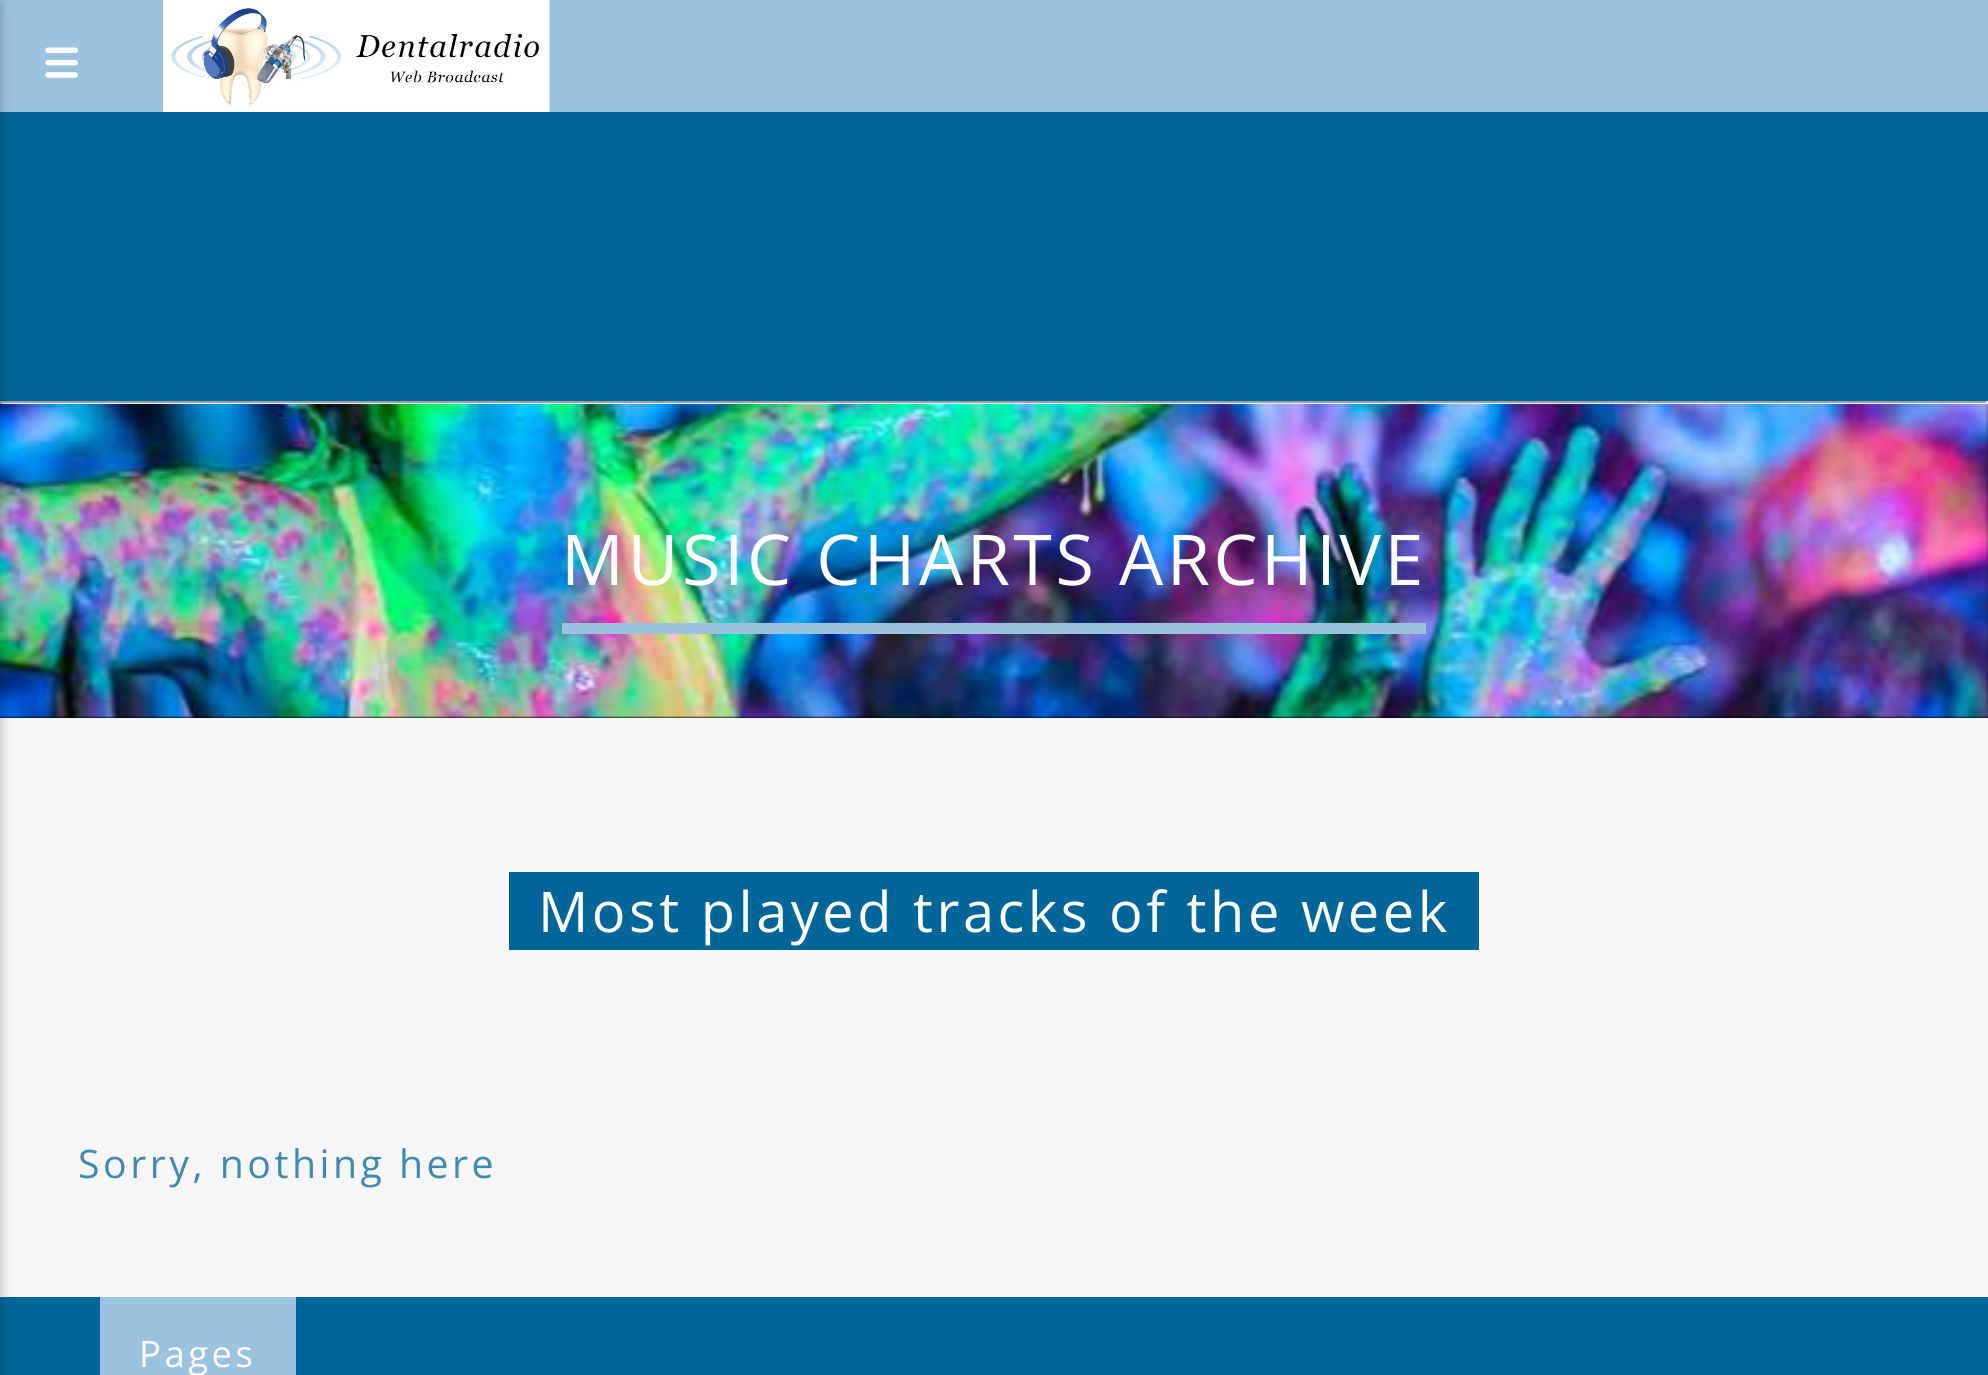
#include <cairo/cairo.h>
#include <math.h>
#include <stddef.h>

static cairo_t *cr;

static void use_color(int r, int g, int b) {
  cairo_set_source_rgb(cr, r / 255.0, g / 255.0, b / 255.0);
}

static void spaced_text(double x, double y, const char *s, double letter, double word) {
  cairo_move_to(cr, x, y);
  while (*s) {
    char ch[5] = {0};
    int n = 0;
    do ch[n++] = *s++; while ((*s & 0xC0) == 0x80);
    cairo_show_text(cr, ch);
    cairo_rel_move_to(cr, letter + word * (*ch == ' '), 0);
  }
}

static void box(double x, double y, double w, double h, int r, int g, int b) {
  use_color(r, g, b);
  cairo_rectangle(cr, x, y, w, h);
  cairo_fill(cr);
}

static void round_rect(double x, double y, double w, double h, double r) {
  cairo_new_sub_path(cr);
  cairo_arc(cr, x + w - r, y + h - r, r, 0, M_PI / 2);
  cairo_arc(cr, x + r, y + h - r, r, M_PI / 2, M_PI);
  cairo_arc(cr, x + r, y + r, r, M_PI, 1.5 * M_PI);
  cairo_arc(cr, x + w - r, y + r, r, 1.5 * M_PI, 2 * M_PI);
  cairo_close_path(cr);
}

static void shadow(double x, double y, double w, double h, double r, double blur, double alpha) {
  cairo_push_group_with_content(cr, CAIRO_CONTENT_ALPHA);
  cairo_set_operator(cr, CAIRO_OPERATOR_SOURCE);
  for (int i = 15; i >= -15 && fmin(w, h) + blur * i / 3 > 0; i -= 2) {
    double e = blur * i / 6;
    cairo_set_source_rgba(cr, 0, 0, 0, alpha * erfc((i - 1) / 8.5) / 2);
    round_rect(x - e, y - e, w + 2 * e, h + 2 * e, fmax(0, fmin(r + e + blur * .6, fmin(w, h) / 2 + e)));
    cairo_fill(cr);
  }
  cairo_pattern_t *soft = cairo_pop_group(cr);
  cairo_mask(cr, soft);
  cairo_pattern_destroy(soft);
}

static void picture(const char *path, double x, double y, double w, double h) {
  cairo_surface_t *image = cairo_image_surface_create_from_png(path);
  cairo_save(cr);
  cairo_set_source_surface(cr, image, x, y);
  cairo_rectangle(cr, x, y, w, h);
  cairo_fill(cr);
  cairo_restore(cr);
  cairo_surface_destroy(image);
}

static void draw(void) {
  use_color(246, 246, 246);
  cairo_paint(cr);
  box(0, 0, 1988, 112, 155, 194, 223);
  picture("img_01.png", 45, 47, 33, 31);
  picture("img_02.png", 163, 0, 387, 112);
  box(0, 112, 1988, 289, 0, 102, 153);
  box(0, 401, 1988, 2, 159, 159, 159);
  box(1986, 401, 2, 4, 238, 238, 238);
  box(0, 403, 1988, 1, 238, 238, 238);
  box(0, 401, 2, 4, 159, 159, 159);
  box(0, 404, 1988, 314, 0, 0, 0);
  picture("img_03.png", 0, 404, 1988, 314);
  box(0, 1297, 1988, 78, 0, 102, 153);
  use_color(0, 0, 0);
  shadow(-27, 4, 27, 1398, 0, 9, 0.12);
  shadow(-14, 4, 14, 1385, 0, 4.5, 0.16);
  box(562, 623, 864, 11, 155, 194, 223);
  box(509, 872, 970, 78, 0, 102, 153);
  box(100, 1297, 196, 78, 155, 194, 223);
  cairo_select_font_face(cr, "Open Sans", CAIRO_FONT_SLANT_NORMAL, CAIRO_FONT_WEIGHT_NORMAL);
  cairo_set_font_size(cr, 70);
  use_color(255, 255, 255);
  spaced_text(561, 585, "MUSIC CHARTS ARCHIVE", 3.5, 0);
  cairo_set_font_size(cr, 56);
  spaced_text(538, 932, "Most played tracks of the week", 3.5, 0);
  cairo_set_font_size(cr, 39.25);
  use_color(62, 138, 176);
  spaced_text(78, 1178, "Sorry, nothing here", 3.5, 0);
  cairo_set_font_size(cr, 36.5);
  use_color(255, 255, 255);
  spaced_text(139, 1367, "Pages", 3.5, 0);
}

int main(void) {
  cairo_surface_t *surface = cairo_image_surface_create(CAIRO_FORMAT_RGB24, 1988, 1375);
  cr = cairo_create(surface);
  cairo_font_options_t *options = cairo_font_options_create();
  cairo_font_options_set_hint_metrics(options, CAIRO_HINT_METRICS_OFF);
  cairo_font_options_set_hint_style(options, CAIRO_HINT_STYLE_NONE);
  cairo_set_font_options(cr, options);
  cairo_set_miter_limit(cr, 4);
  draw();
  cairo_surface_write_to_png(surface, "out.png");
  cairo_font_options_destroy(options);
  cairo_destroy(cr);
  cairo_surface_destroy(surface);
  return 0;
}
